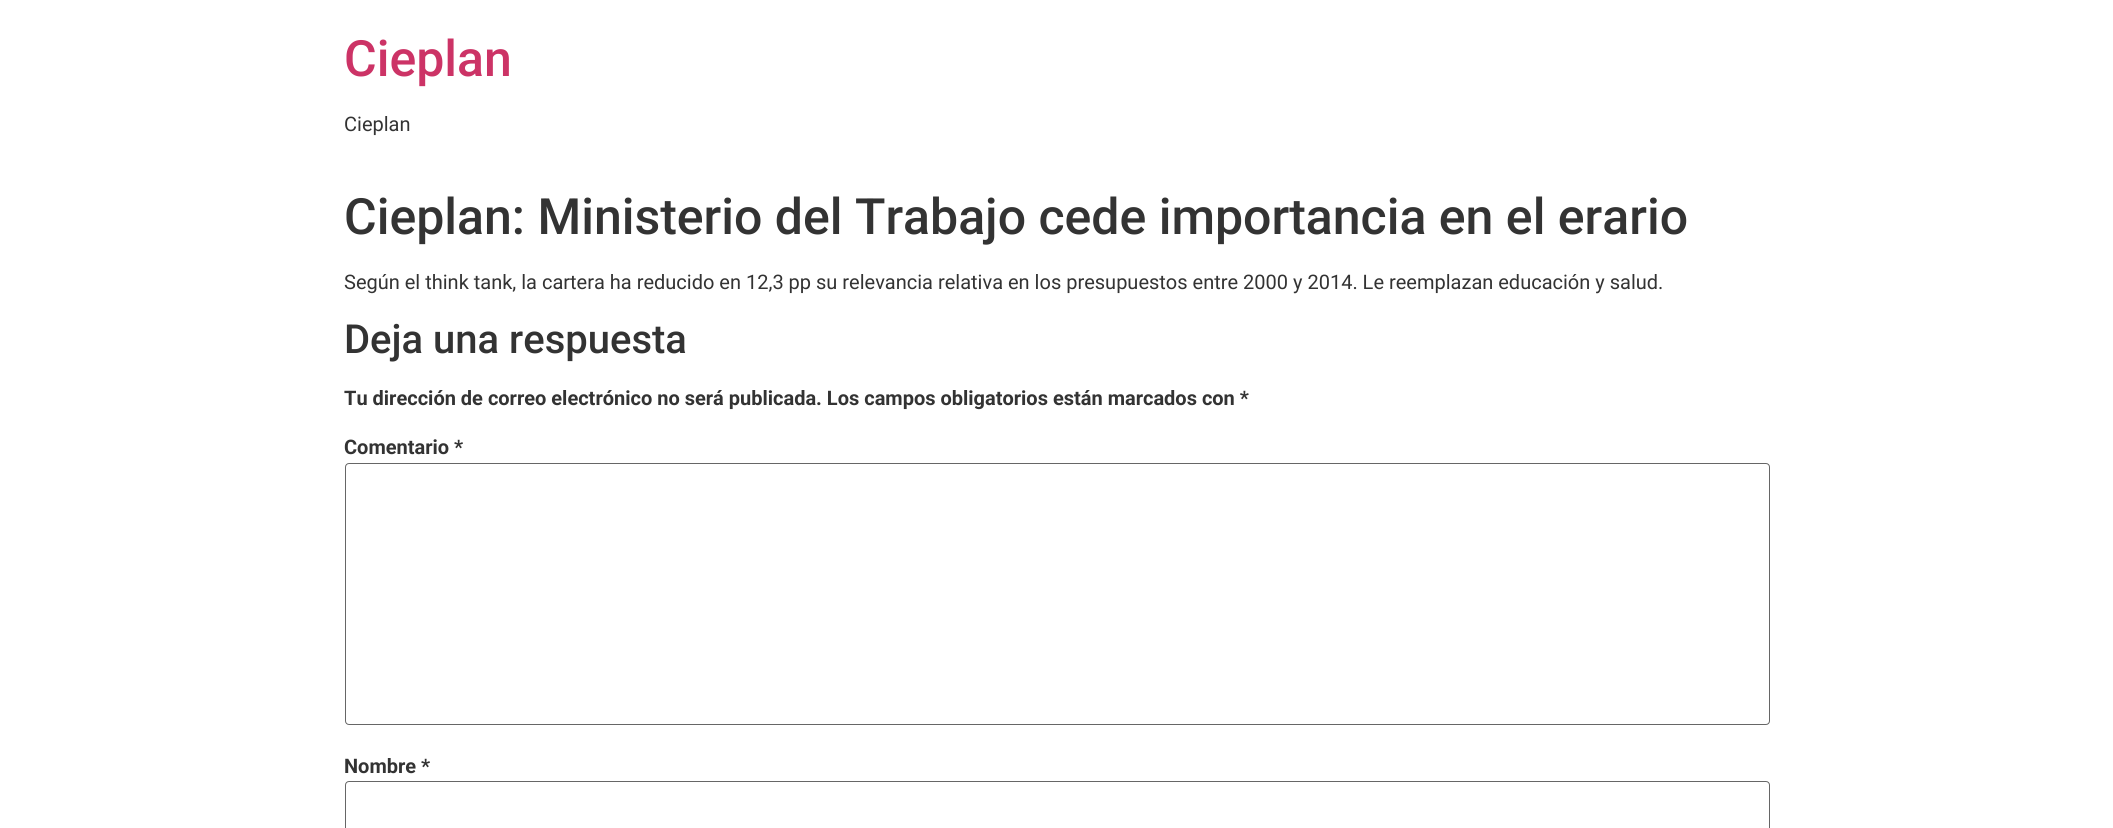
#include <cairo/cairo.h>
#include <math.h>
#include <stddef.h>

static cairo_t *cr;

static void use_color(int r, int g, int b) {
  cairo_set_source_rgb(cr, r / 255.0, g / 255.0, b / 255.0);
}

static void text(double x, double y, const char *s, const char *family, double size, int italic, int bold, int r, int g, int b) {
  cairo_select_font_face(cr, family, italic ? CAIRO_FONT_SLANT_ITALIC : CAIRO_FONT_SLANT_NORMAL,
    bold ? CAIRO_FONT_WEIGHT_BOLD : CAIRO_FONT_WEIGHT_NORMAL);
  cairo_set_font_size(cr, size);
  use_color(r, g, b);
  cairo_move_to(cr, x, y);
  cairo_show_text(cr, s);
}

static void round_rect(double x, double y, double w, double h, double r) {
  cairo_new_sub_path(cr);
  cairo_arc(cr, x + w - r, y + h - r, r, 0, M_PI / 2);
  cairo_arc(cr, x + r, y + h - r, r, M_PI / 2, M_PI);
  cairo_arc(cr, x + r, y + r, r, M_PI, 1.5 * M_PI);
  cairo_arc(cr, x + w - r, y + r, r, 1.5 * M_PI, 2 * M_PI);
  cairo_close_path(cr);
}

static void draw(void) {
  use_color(255, 255, 255);
  cairo_paint(cr);
  round_rect(345.5, 463.5, 1424, 261, 3.5);
  use_color(102, 102, 102);
  cairo_set_line_width(cr, 1);
  cairo_stroke(cr);
  round_rect(345.5, 781.5, 1424, 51, 3.5);
  cairo_stroke(cr);
  text(344, 76, "Cieplan", "Roboto Medium", 50, 0, 0, 204, 51, 102);
  text(344, 131, "Cieplan", "Roboto", 20, 0, 0, 51, 51, 51);
  text(344, 234, "Cieplan: Ministerio del Trabajo cede importancia en el erario", "Roboto Medium", 50, 0, 0, 51, 51, 51);
  text(344, 289, "Según el think tank, la cartera ha reducido en 12,3 pp su relevancia relativa en los presupuestos entre 2000 y 2014. Le reemplazan educación y salud.", "Roboto", 20, 0, 0, 51, 51, 51);
  text(344, 353, "Deja una respuesta", "Roboto Medium", 40, 0, 0, 51, 51, 51);
  text(344, 405, "Tu dirección de correo electrónico no será publicada. Los campos obligatorios están marcados con *", "Roboto", 20, 0, 1, 51, 51, 51);
  text(344, 454, "Comentario *", "Roboto", 20, 0, 1, 51, 51, 51);
  text(344, 773, "Nombre *", "Roboto", 20, 0, 1, 51, 51, 51);
}

int main(void) {
  cairo_surface_t *surface = cairo_image_surface_create(CAIRO_FORMAT_RGB24, 2113, 828);
  cr = cairo_create(surface);
  cairo_font_options_t *options = cairo_font_options_create();
  cairo_font_options_set_hint_metrics(options, CAIRO_HINT_METRICS_OFF);
  cairo_font_options_set_hint_style(options, CAIRO_HINT_STYLE_NONE);
  cairo_set_font_options(cr, options);
  cairo_set_miter_limit(cr, 4);
  draw();
  cairo_surface_write_to_png(surface, "out.png");
  cairo_font_options_destroy(options);
  cairo_destroy(cr);
  cairo_surface_destroy(surface);
  return 0;
}
